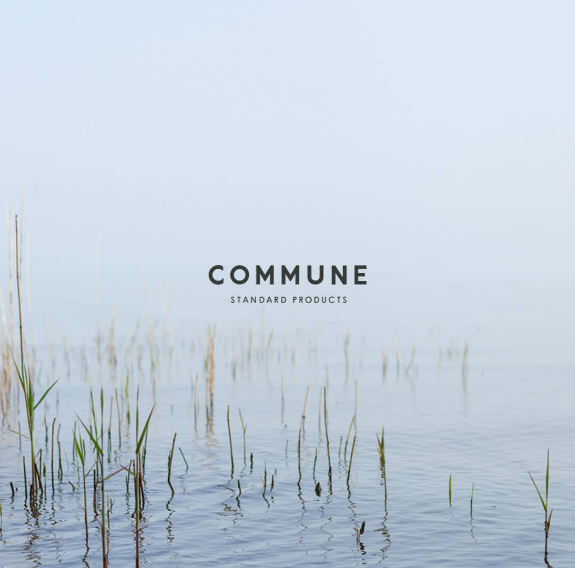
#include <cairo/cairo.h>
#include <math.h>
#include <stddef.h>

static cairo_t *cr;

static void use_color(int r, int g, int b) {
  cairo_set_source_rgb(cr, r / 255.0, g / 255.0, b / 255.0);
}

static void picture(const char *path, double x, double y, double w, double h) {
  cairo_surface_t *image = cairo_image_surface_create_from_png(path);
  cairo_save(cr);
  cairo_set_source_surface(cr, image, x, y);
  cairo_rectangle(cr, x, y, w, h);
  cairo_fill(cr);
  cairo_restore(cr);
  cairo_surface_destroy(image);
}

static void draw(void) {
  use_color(255, 255, 255);
  cairo_paint(cr);
  picture("img_01.png", 0, 0, 575, 568);
}

int main(void) {
  cairo_surface_t *surface = cairo_image_surface_create(CAIRO_FORMAT_RGB24, 575, 568);
  cr = cairo_create(surface);
  cairo_font_options_t *options = cairo_font_options_create();
  cairo_font_options_set_hint_metrics(options, CAIRO_HINT_METRICS_OFF);
  cairo_font_options_set_hint_style(options, CAIRO_HINT_STYLE_NONE);
  cairo_set_font_options(cr, options);
  cairo_set_miter_limit(cr, 4);
  draw();
  cairo_surface_write_to_png(surface, "out.png");
  cairo_font_options_destroy(options);
  cairo_destroy(cr);
  cairo_surface_destroy(surface);
  return 0;
}
